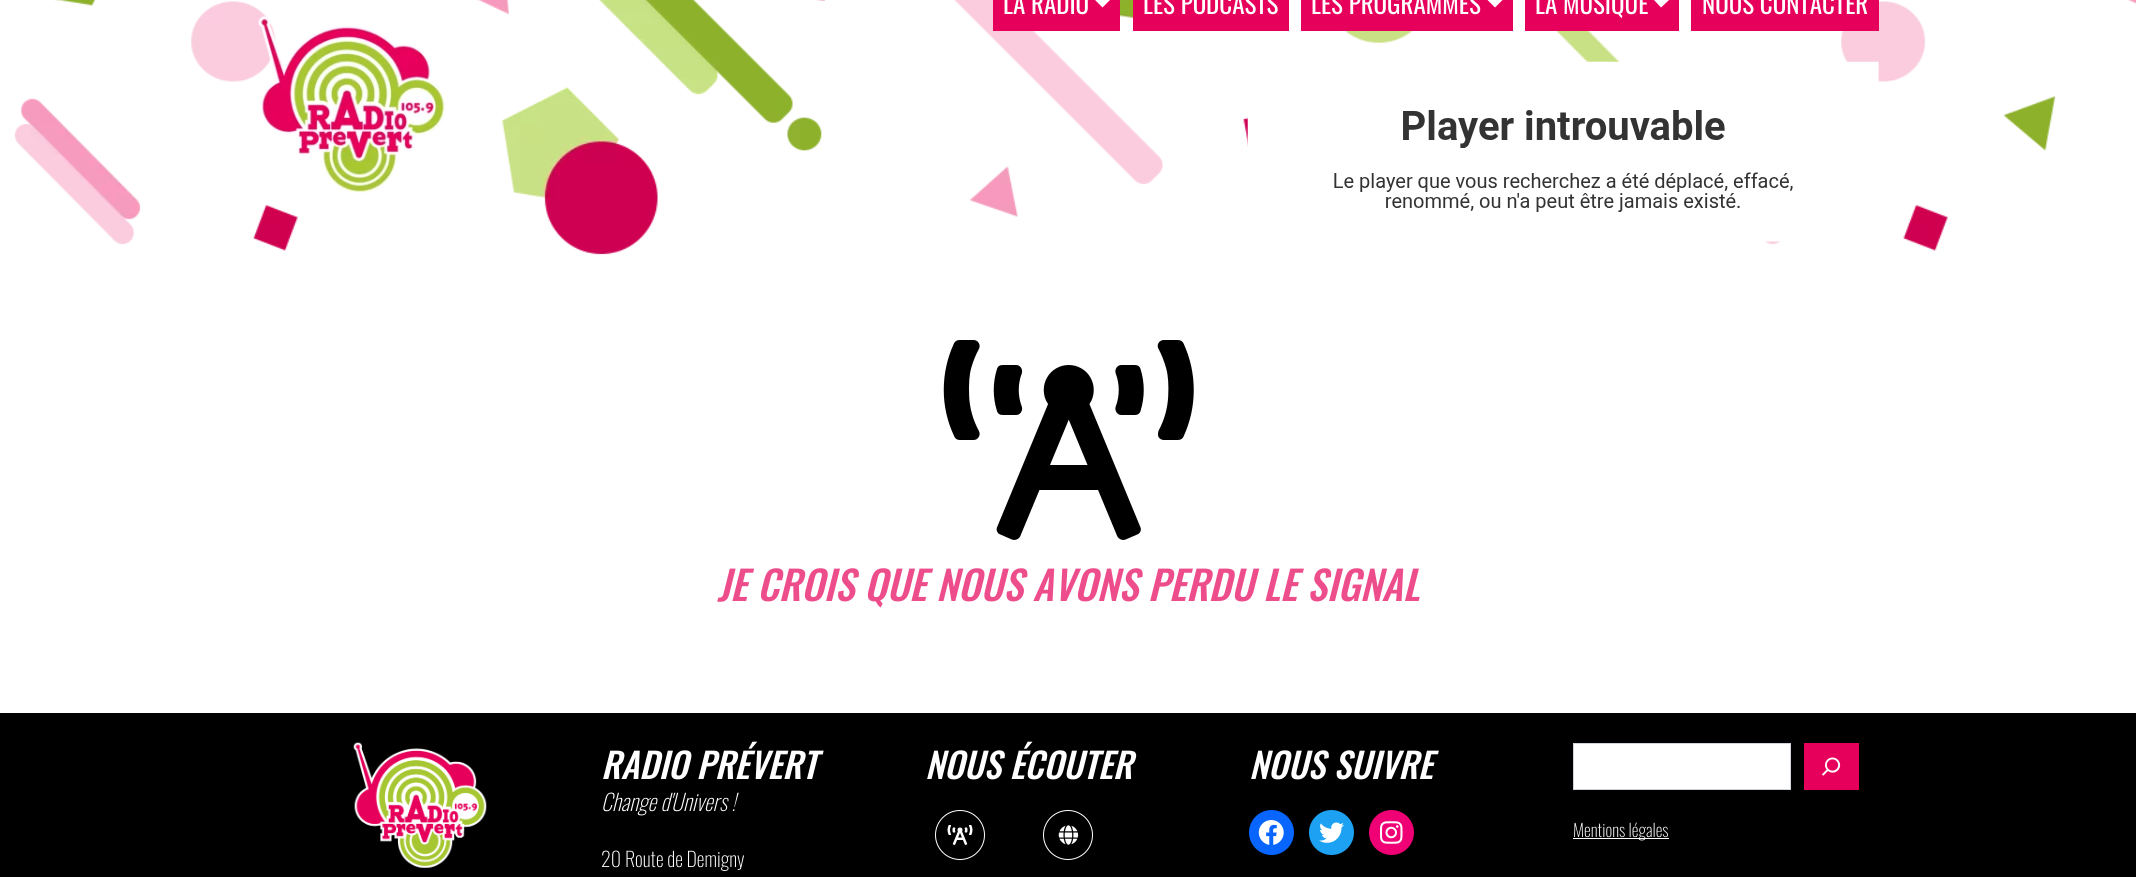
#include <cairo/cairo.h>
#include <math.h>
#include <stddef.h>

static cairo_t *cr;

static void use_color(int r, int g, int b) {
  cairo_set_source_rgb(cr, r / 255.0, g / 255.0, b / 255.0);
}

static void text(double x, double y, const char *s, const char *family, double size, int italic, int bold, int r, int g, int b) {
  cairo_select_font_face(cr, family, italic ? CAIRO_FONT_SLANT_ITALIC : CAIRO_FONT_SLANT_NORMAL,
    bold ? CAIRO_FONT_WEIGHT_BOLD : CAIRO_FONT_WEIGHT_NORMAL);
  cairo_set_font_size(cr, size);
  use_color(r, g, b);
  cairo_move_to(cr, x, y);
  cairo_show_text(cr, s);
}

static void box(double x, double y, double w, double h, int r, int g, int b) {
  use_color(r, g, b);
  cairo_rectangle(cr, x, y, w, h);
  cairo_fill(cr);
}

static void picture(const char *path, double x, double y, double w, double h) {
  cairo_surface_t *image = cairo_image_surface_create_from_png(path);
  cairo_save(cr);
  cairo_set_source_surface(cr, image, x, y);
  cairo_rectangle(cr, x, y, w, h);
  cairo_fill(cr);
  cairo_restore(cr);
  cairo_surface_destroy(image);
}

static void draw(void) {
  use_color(255, 255, 255);
  cairo_paint(cr);
  picture("img_01.png", 14, 0, 2122, 255);
  box(993, 0, 127, 31, 230, 0, 91);
  use_color(255, 255, 255);
  cairo_new_path(cr);
  cairo_move_to(cr, 1095, 0);
  cairo_line_to(cr, 1110, 0);
  cairo_line_to(cr, 1102.5, 7.5);
  cairo_close_path(cr);
  cairo_fill(cr);
  box(1133, 0, 156, 31, 230, 0, 91);
  box(1301, 0, 212, 31, 230, 0, 91);
  use_color(255, 255, 255);
  cairo_new_path(cr);
  cairo_move_to(cr, 1487.5, 0);
  cairo_line_to(cr, 1502.5, 0);
  cairo_line_to(cr, 1495, 7.5);
  cairo_close_path(cr);
  cairo_fill(cr);
  box(1525, 0, 154, 31, 230, 0, 91);
  use_color(255, 255, 255);
  cairo_new_path(cr);
  cairo_move_to(cr, 1654, 0);
  cairo_line_to(cr, 1669, 0);
  cairo_line_to(cr, 1661, 7.5);
  cairo_close_path(cr);
  cairo_fill(cr);
  box(1691, 0, 188, 31, 230, 0, 91);
  picture("img_02.png", 258, 16, 188, 177);
  picture("img_03.png", 1247, 61, 632, 181);
  picture("img_04.png", 943, 340, 251, 200);
  box(0, 713, 2136, 164, 0, 0, 0);
  picture("img_05.png", 353, 742, 134, 126);
  cairo_arc(cr, 960, 835, 24.5, 0, 2 * M_PI);
  use_color(255, 255, 255);
  cairo_set_line_width(cr, 1);
  cairo_stroke(cr);
  picture("img_06.png", 947, 825, 26, 20);
  cairo_arc(cr, 1068, 835, 24.5, 0, 2 * M_PI);
  cairo_stroke(cr);
  picture("img_07.png", 1058, 825, 21, 20);
  use_color(8, 102, 255);
  cairo_arc(cr, 1271.5, 832.5, 22.5, 0, 2 * M_PI);
  cairo_fill(cr);
  picture("img_08.png", 1258, 820, 26, 25);
  use_color(29, 161, 242);
  cairo_arc(cr, 1331.5, 832.5, 22.5, 0, 2 * M_PI);
  cairo_fill(cr);
  picture("img_09.png", 1319, 822, 25, 21);
  use_color(240, 0, 117);
  cairo_arc(cr, 1391.5, 832.5, 22.5, 0, 2 * M_PI);
  cairo_fill(cr);
  picture("img_10.png", 1380, 821, 23, 23);
  use_color(255, 255, 255);
  cairo_rectangle(cr, 1573.5, 743.5, 217, 46);
  cairo_fill_preserve(cr);
  use_color(206, 212, 218);
  cairo_stroke(cr);
  box(1804, 743, 55, 47, 230, 0, 91);
  picture("img_11.png", 1822, 757, 19, 19);
  box(1573, 838, 96, 1, 255, 255, 255);
  text(1003, 14, "LA RADIO", "Oswald", 25, 0, 0, 255, 255, 255);
  text(1143, 14, "LES PODCASTS", "Oswald", 25, 0, 0, 255, 255, 255);
  text(1311, 14, "LES PROGRAMMES", "Oswald", 25, 0, 0, 255, 255, 255);
  text(1535, 14, "LA MUSIQUE", "Oswald", 25, 0, 0, 255, 255, 255);
  text(1702, 14, "NOUS CONTACTER", "Oswald", 25, 0, 0, 255, 255, 255);
  text(717, 601, "JE CROIS QUE NOUS AVONS PERDU LE SIGNAL", "Oswald Medium", 40, 1, 0, 238, 77, 140);
  text(601, 779, "RADIO PRÉVERT", "Oswald Medium", 35, 1, 0, 255, 255, 255);
  text(601, 811, "Change d'Univers !", "Oswald ExtraLight", 22.5, 1, 0, 255, 255, 255);
  text(601, 867, "20 Route de Demigny", "Oswald ExtraLight", 20, 0, 0, 255, 255, 255);
  text(925, 779, "NOUS ÉCOUTER", "Oswald Medium", 35, 1, 0, 255, 255, 255);
  text(1249, 779, "NOUS SUIVRE", "Oswald Medium", 35, 1, 0, 255, 255, 255);
  text(1573, 837, "Mentions légales", "Oswald ExtraLight", 17.5, 0, 0, 255, 255, 255);
}

int main(void) {
  cairo_surface_t *surface = cairo_image_surface_create(CAIRO_FORMAT_RGB24, 2136, 877);
  cr = cairo_create(surface);
  cairo_font_options_t *options = cairo_font_options_create();
  cairo_font_options_set_hint_metrics(options, CAIRO_HINT_METRICS_OFF);
  cairo_font_options_set_hint_style(options, CAIRO_HINT_STYLE_NONE);
  cairo_set_font_options(cr, options);
  cairo_set_miter_limit(cr, 4);
  draw();
  cairo_surface_write_to_png(surface, "out.png");
  cairo_font_options_destroy(options);
  cairo_destroy(cr);
  cairo_surface_destroy(surface);
  return 0;
}
